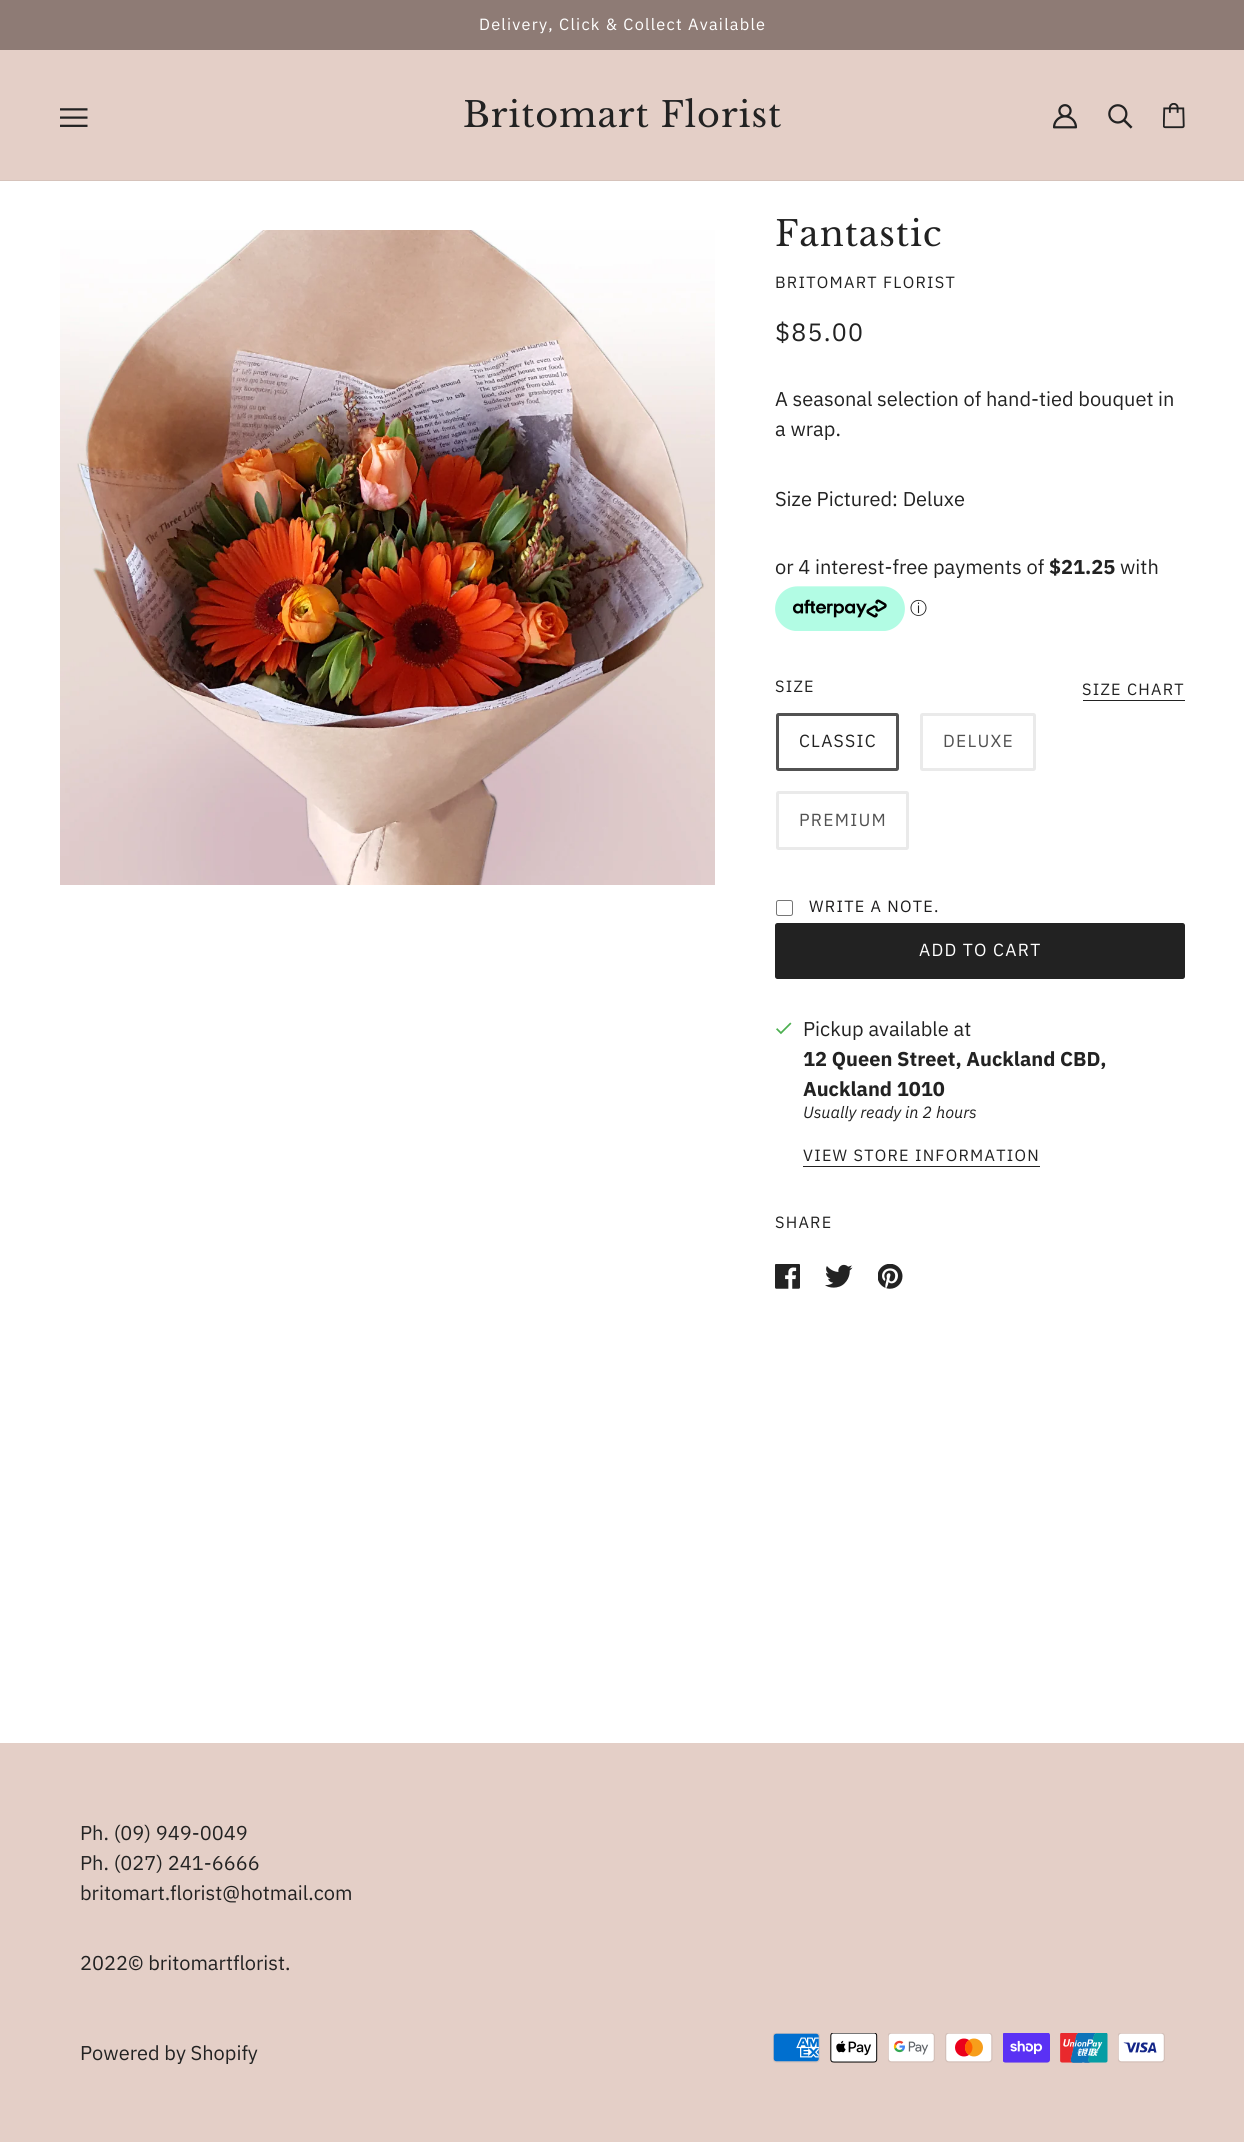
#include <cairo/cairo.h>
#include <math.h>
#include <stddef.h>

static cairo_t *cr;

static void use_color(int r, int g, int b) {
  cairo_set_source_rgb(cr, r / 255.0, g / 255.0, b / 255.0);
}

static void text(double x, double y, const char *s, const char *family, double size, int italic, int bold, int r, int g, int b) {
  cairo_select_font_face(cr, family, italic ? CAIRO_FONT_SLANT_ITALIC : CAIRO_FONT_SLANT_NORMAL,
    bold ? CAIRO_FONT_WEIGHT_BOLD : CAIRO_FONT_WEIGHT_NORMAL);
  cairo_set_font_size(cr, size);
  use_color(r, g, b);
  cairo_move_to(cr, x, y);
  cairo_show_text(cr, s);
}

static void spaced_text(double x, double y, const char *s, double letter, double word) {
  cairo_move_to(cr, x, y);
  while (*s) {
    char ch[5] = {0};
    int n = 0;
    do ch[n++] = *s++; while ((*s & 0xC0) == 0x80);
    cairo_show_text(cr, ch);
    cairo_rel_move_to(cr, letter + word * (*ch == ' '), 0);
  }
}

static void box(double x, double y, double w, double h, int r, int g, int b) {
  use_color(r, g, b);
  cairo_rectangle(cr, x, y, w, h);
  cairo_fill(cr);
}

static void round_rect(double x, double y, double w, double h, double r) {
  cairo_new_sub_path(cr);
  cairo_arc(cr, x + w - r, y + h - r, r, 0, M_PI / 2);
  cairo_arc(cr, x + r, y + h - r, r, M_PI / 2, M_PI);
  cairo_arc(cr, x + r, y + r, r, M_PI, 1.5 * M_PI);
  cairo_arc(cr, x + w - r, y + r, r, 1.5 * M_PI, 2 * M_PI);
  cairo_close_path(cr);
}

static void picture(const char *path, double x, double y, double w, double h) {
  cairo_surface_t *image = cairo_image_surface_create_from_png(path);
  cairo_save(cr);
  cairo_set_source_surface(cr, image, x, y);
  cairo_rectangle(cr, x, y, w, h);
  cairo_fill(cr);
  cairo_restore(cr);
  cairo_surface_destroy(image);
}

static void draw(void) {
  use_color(255, 255, 255);
  cairo_paint(cr);
  box(0, 0, 1244, 50, 142, 123, 117);
  box(0, 50, 1244, 130, 228, 207, 199);
  box(0, 180, 1244, 1, 214, 195, 187);
  picture("img_01.png", 60, 108, 28, 19);
  picture("img_02.png", 1053, 104, 25, 25);
  picture("img_03.png", 1108, 104, 25, 25);
  picture("img_04.png", 1163, 103, 22, 26);
  picture("img_05.png", 60, 230, 655, 655);
  picture("img_06.png", 775, 586, 130, 45);
  box(1083, 700, 102, 1, 34, 34, 34);
  round_rect(777.5, 714.5, 120, 55, 1);
  use_color(82, 82, 82);
  cairo_set_line_width(cr, 3);
  cairo_stroke(cr);
  round_rect(921.5, 714.5, 113, 55, 1);
  use_color(234, 234, 234);
  cairo_stroke(cr);
  round_rect(777.5, 792.5, 130, 56, 1);
  cairo_stroke(cr);
  round_rect(776.5, 900.5, 16, 15, 2);
  use_color(118, 118, 118);
  cairo_set_line_width(cr, 1);
  cairo_stroke(cr);
  use_color(34, 34, 34);
  round_rect(775, 923, 410, 56, 2.5);
  cairo_fill(cr);
  picture("img_07.png", 776, 1022, 16, 13);
  box(803, 1166, 237, 1, 34, 34, 34);
  picture("img_08.png", 775, 1264, 25, 25);
  picture("img_09.png", 825, 1264, 28, 24);
  picture("img_10.png", 878, 1264, 25, 25);
  box(0, 1743, 1244, 399, 228, 207, 199);
  picture("img_11.png", 773, 2033, 47, 30);
  picture("img_12.png", 830, 2033, 48, 30);
  picture("img_13.png", 888, 2033, 47, 30);
  picture("img_14.png", 945, 2033, 48, 30);
  picture("img_15.png", 1003, 2033, 47, 30);
  picture("img_16.png", 1060, 2033, 48, 30);
  picture("img_17.png", 1118, 2033, 47, 30);
  cairo_select_font_face(cr, "IBM Plex Sans", CAIRO_FONT_SLANT_NORMAL, CAIRO_FONT_WEIGHT_NORMAL);
  cairo_set_font_size(cr, 16.25);
  use_color(255, 255, 255);
  spaced_text(479, 30, "Delivery, Click & Collect Available", 1.25, 0);
  cairo_select_font_face(cr, "Libre Baskerville", CAIRO_FONT_SLANT_NORMAL, CAIRO_FONT_WEIGHT_NORMAL);
  cairo_set_font_size(cr, 35);
  use_color(34, 34, 34);
  spaced_text(463, 127, "Britomart Florist", 0.9, 0);
  spaced_text(775, 246, "Fantastic", 0.9, 0);
  cairo_select_font_face(cr, "IBM Plex Sans", CAIRO_FONT_SLANT_NORMAL, CAIRO_FONT_WEIGHT_NORMAL);
  cairo_set_font_size(cr, 16.25);
  spaced_text(775, 288, "BRITOMART FLORIST", 1.25, 0);
  cairo_set_font_size(cr, 25);
  spaced_text(775, 341, "$85.00", 1.25, 0);
  text(775, 406, "A seasonal selection of hand-tied bouquet in", "IBM Plex Sans", 20, 0, 0, 34, 34, 34);
  text(775, 436, "a wrap.", "IBM Plex Sans", 20, 0, 0, 34, 34, 34);
  text(775, 506, "Size Pictured: Deluxe", "IBM Plex Sans", 20, 0, 0, 34, 34, 34);
  text(775, 574, "or 4 interest-free payments of", "IBM Plex Sans", 20, 0, 0, 34, 34, 34);
  text(1049, 574, "$21.25", "IBM Plex Sans", 20, 0, 1, 34, 34, 34);
  text(1120, 574, "with", "IBM Plex Sans", 20, 0, 0, 34, 34, 34);
  text(910, 614, "ⓘ", "WenQuanYi Zen Hei Medium", 17, 0, 0, 34, 34, 34);
  cairo_select_font_face(cr, "IBM Plex Sans", CAIRO_FONT_SLANT_NORMAL, CAIRO_FONT_WEIGHT_NORMAL);
  cairo_set_font_size(cr, 16.25);
  spaced_text(775, 692, "SIZE", 1.25, 0);
  spaced_text(1082, 695, "SIZE CHART", 1.25, 0);
  cairo_set_font_size(cr, 17.5);
  spaced_text(799, 747, "CLASSIC", 1.25, 0);
  use_color(82, 82, 82);
  spaced_text(943, 747, "DELUXE", 1.25, 0);
  spaced_text(799, 826, "PREMIUM", 1.25, 0);
  cairo_set_font_size(cr, 16.25);
  use_color(29, 28, 29);
  spaced_text(809, 912, "WRITE A NOTE.", 1.25, 0);
  cairo_set_font_size(cr, 17.5);
  use_color(255, 255, 255);
  spaced_text(919, 956, "ADD TO CART", 1.25, 0);
  text(803, 1036, "Pickup available at", "IBM Plex Sans", 20, 0, 0, 34, 34, 34);
  text(803, 1066, "12 Queen Street, Auckland CBD,", "IBM Plex Sans", 20, 0, 1, 34, 34, 34);
  text(803, 1096, "Auckland 1010", "IBM Plex Sans", 20, 0, 1, 34, 34, 34);
  text(803, 1118, "Usually ready in 2 hours", "IBM Plex Sans", 16.25, 1, 0, 34, 34, 34);
  cairo_select_font_face(cr, "IBM Plex Sans", CAIRO_FONT_SLANT_NORMAL, CAIRO_FONT_WEIGHT_NORMAL);
  spaced_text(803, 1161, "VIEW STORE INFORMATION", 1.25, 0);
  spaced_text(775, 1228, "SHARE", 1.25, 0);
  text(80, 1840, "Ph. (09) 949-0049", "IBM Plex Sans", 20, 0, 0, 34, 34, 34);
  text(80, 1870, "Ph. (027) 241-6666", "IBM Plex Sans", 20, 0, 0, 34, 34, 34);
  text(80, 1900, "britomart.florist@hotmail.com", "IBM Plex Sans", 20, 0, 0, 34, 34, 34);
  text(80, 1970, "2022© britomartflorist.", "IBM Plex Sans", 20, 0, 0, 34, 34, 34);
  text(80, 2060, "Powered by Shopify", "IBM Plex Sans", 20, 0, 0, 34, 34, 34);
}

int main(void) {
  cairo_surface_t *surface = cairo_image_surface_create(CAIRO_FORMAT_RGB24, 1244, 2142);
  cr = cairo_create(surface);
  cairo_font_options_t *options = cairo_font_options_create();
  cairo_font_options_set_hint_metrics(options, CAIRO_HINT_METRICS_OFF);
  cairo_font_options_set_hint_style(options, CAIRO_HINT_STYLE_NONE);
  cairo_set_font_options(cr, options);
  cairo_set_miter_limit(cr, 4);
  draw();
  cairo_surface_write_to_png(surface, "out.png");
  cairo_font_options_destroy(options);
  cairo_destroy(cr);
  cairo_surface_destroy(surface);
  return 0;
}
